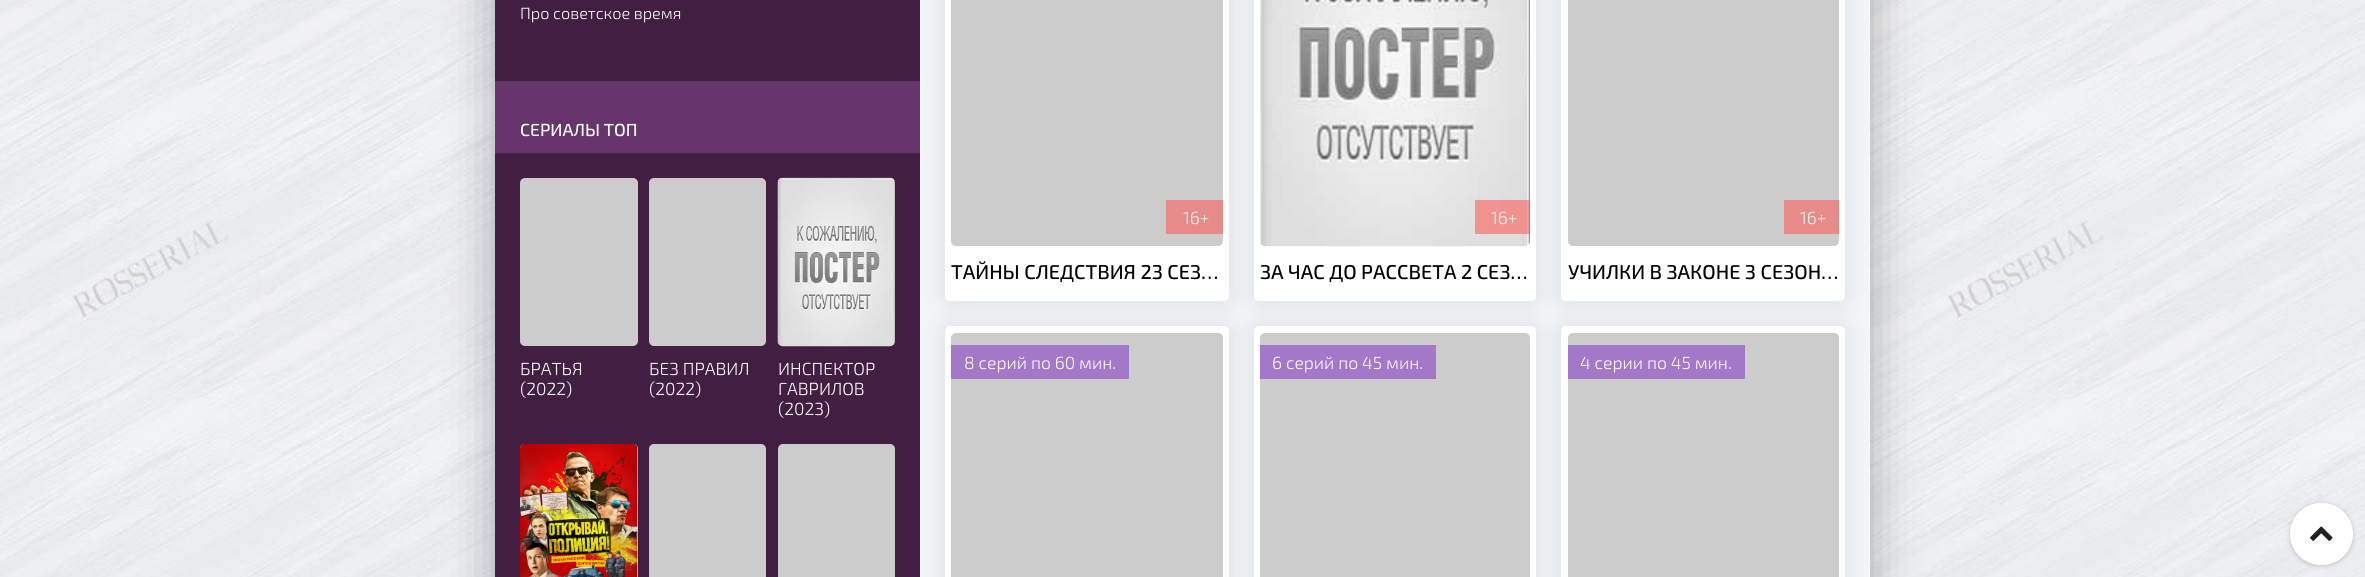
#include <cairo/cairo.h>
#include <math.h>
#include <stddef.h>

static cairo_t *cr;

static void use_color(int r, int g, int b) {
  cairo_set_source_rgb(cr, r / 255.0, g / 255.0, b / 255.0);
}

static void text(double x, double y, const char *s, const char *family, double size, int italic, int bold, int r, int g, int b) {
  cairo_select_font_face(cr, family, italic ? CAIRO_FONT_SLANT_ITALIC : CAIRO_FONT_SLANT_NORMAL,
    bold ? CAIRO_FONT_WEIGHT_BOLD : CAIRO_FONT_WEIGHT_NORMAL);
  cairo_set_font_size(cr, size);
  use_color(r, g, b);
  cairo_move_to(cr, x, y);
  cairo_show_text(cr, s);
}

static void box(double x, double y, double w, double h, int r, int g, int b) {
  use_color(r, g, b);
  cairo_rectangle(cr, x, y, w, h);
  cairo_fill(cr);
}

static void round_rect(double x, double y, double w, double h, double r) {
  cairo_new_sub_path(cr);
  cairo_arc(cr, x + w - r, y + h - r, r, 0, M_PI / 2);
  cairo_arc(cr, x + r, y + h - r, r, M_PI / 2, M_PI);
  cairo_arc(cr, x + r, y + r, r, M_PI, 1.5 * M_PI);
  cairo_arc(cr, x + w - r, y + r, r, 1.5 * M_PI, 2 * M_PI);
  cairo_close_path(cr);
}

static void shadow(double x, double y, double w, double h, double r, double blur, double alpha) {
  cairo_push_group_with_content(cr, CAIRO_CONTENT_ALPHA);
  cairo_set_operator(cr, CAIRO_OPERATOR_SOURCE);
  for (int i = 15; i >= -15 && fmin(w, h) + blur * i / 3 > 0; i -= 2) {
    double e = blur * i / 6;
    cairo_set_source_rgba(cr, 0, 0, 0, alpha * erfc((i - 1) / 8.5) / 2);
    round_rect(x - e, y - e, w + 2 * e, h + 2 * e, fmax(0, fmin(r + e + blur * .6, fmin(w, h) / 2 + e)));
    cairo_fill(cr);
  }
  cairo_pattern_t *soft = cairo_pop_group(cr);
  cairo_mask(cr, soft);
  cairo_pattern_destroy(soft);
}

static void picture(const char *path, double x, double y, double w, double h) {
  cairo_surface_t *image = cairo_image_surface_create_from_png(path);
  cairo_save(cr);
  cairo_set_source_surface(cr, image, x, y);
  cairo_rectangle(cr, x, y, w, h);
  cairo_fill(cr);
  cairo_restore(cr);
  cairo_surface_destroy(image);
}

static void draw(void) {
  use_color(255, 255, 255);
  cairo_paint(cr);
  picture("img_01.png", 0, 0, 2365, 577);
  use_color(0, 0, 0);
  shadow(495, -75, 1375, 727, 0, 25, 0.3);
  box(920, 0, 950, 577, 242, 246, 248);
  use_color(0, 0, 0);
  shadow(945, -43, 284, 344, 5, 12.5, 0.1);
  use_color(255, 255, 255);
  round_rect(945, -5, 284, 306, 5);
  cairo_fill(cr);
  use_color(204, 204, 204);
  round_rect(951, -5, 272, 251, 5);
  cairo_fill(cr);
  box(1166, 200, 57, 34, 231, 139, 136);
  use_color(0, 0, 0);
  shadow(1254, -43, 282, 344, 5, 12.5, 0.1);
  use_color(255, 255, 255);
  round_rect(1254, -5, 282, 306, 5);
  cairo_fill(cr);
  use_color(0, 0, 0);
  shadow(945, 326, 284, 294, 5, 12.5, 0.1);
  box(495, 0, 425, 577, 66, 30, 66);
  box(495, 81, 425, 72, 104, 52, 108);
  use_color(204, 204, 204);
  round_rect(520, 178, 118, 168, 5);
  cairo_fill(cr);
  round_rect(649, 178, 117, 168, 5);
  cairo_fill(cr);
  picture("img_02.png", 777, 177, 118, 170);
  round_rect(520, 444, 118, 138, 5);
  cairo_fill(cr);
  picture("img_03.png", 520, 443, 118, 134);
  round_rect(649, 444, 117, 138, 5);
  cairo_fill(cr);
  round_rect(778, 444, 117, 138, 5);
  cairo_fill(cr);
  picture("img_04.png", 1260, 0, 270, 247);
  cairo_set_source_rgba(cr, 1, 0.318, 0.298, 0.53);
  cairo_rectangle(cr, 1475, 200, 55, 34);
  cairo_fill(cr);
  use_color(0, 0, 0);
  shadow(1561, -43, 284, 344, 5, 12.5, 0.1);
  use_color(255, 255, 255);
  round_rect(1561, -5, 284, 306, 5);
  cairo_fill(cr);
  use_color(204, 204, 204);
  round_rect(1568, -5, 271, 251, 5);
  cairo_fill(cr);
  box(1784, 200, 55, 34, 231, 139, 136);
  use_color(255, 255, 255);
  round_rect(945, 326, 284, 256, 5);
  cairo_fill(cr);
  use_color(204, 204, 204);
  round_rect(951, 333, 272, 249, 5);
  cairo_fill(cr);
  box(951, 345, 178, 34, 164, 120, 200);
  use_color(0, 0, 0);
  shadow(1254, 326, 282, 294, 5, 12.5, 0.1);
  use_color(255, 255, 255);
  round_rect(1254, 326, 282, 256, 5);
  cairo_fill(cr);
  use_color(204, 204, 204);
  round_rect(1260, 333, 270, 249, 5);
  cairo_fill(cr);
  box(1260, 345, 176, 34, 164, 120, 200);
  use_color(0, 0, 0);
  shadow(1561, 326, 284, 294, 5, 12.5, 0.1);
  use_color(255, 255, 255);
  round_rect(1561, 326, 284, 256, 5);
  cairo_fill(cr);
  use_color(204, 204, 204);
  round_rect(1568, 333, 271, 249, 5);
  cairo_fill(cr);
  box(1568, 345, 177, 34, 164, 120, 200);
  use_color(0, 0, 0);
  shadow(2290, 504, 63, 62, 31, 2.5, 0.2);
  use_color(255, 255, 255);
  round_rect(2290, 503, 63, 62, 31);
  cairo_fill(cr);
  picture("img_05.png", 2310, 526, 23, 15);
  text(520, 19, "Про советское время", "Exo 2 Light", 16.25, 0, 0, 255, 255, 255);
  text(520, 136, "СЕРИАЛЫ ТОП", "Exo 2 Medium", 17.5, 0, 0, 255, 255, 255);
  text(520, 375, "БРАТЬЯ", "Exo 2 Light", 17.5, 0, 0, 255, 255, 255);
  text(520, 395, "(2022)", "Exo 2 Light", 17.5, 0, 0, 255, 255, 255);
  text(649, 375, "БЕЗ ПРАВИЛ", "Exo 2 Light", 17.5, 0, 0, 255, 255, 255);
  text(649, 395, "(2022)", "Exo 2 Light", 17.5, 0, 0, 255, 255, 255);
  text(778, 375, "ИНСПЕКТОР", "Exo 2 Light", 17.5, 0, 0, 255, 255, 255);
  text(778, 395, "ГАВРИЛОВ", "Exo 2 Light", 17.5, 0, 0, 255, 255, 255);
  text(778, 415, "(2023)", "Exo 2 Light", 17.5, 0, 0, 255, 255, 255);
  text(1183, 224, "16+", "Exo 2 Light", 17.5, 0, 0, 245, 245, 245);
  text(951, 279, "ТАЙНЫ СЛЕДСТВИЯ 23 СЕЗ…", "Exo 2 Medium", 20, 0, 0, 0, 0, 0);
  text(1491, 224, "16+", "Exo 2 Light", 17.5, 0, 0, 245, 245, 245);
  text(1260, 279, "ЗА ЧАС ДО РАССВЕТА 2 СЕЗ…", "Exo 2 Medium", 20, 0, 0, 0, 0, 0);
  text(1800, 224, "16+", "Exo 2 Light", 17.5, 0, 0, 245, 245, 245);
  text(1568, 279, "УЧИЛКИ В ЗАКОНЕ 3 СЕЗОН…", "Exo 2 Medium", 20, 0, 0, 0, 0, 0);
  text(964, 369, "8 серий по 60 мин.", "Exo 2 Light", 17.5, 0, 0, 255, 255, 255);
  text(1272, 369, "6 серий по 45 мин.", "Exo 2 Light", 17.5, 0, 0, 255, 255, 255);
  text(1580, 369, "4 серии по 45 мин.", "Exo 2 Light", 17.5, 0, 0, 255, 255, 255);
}

int main(void) {
  cairo_surface_t *surface = cairo_image_surface_create(CAIRO_FORMAT_RGB24, 2365, 577);
  cr = cairo_create(surface);
  cairo_font_options_t *options = cairo_font_options_create();
  cairo_font_options_set_hint_metrics(options, CAIRO_HINT_METRICS_OFF);
  cairo_font_options_set_hint_style(options, CAIRO_HINT_STYLE_NONE);
  cairo_set_font_options(cr, options);
  cairo_set_miter_limit(cr, 4);
  draw();
  cairo_surface_write_to_png(surface, "out.png");
  cairo_font_options_destroy(options);
  cairo_destroy(cr);
  cairo_surface_destroy(surface);
  return 0;
}
